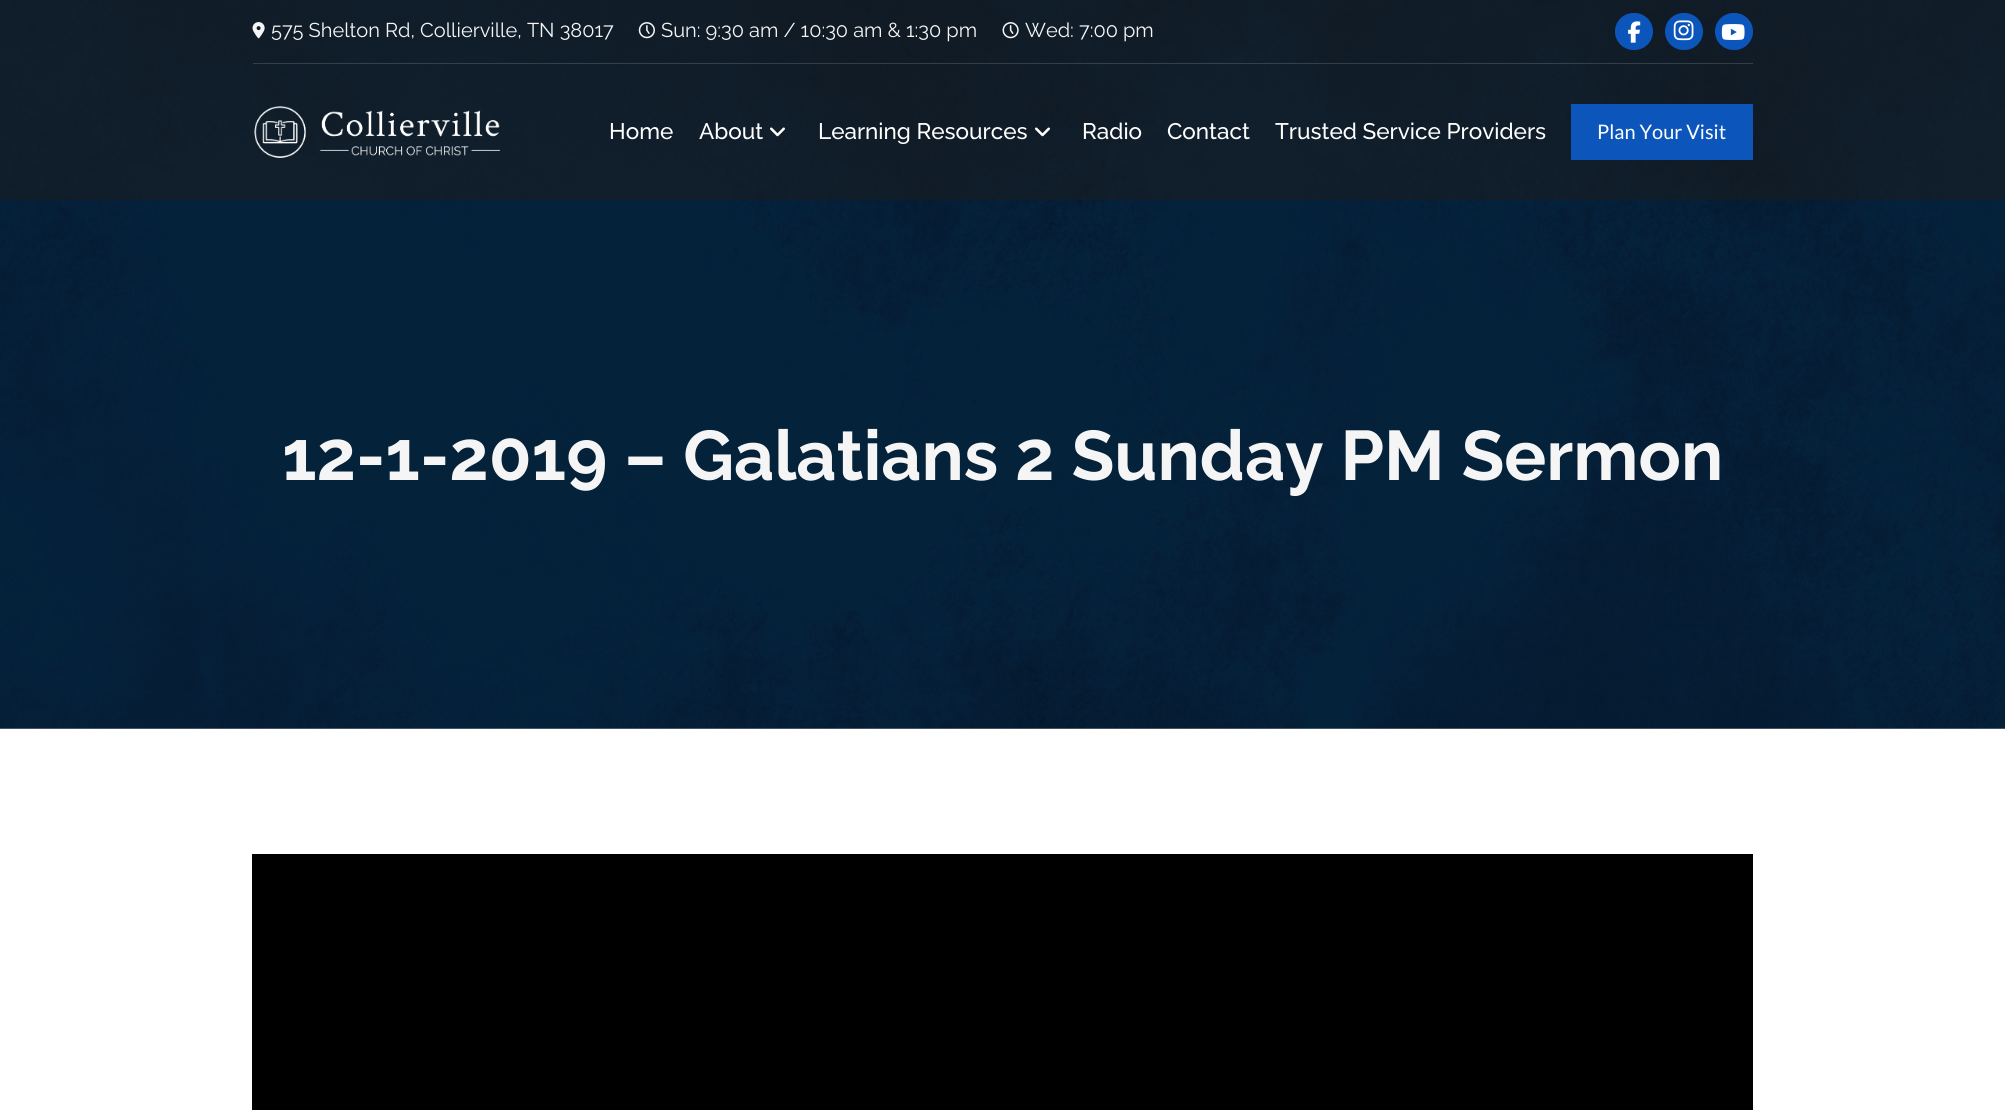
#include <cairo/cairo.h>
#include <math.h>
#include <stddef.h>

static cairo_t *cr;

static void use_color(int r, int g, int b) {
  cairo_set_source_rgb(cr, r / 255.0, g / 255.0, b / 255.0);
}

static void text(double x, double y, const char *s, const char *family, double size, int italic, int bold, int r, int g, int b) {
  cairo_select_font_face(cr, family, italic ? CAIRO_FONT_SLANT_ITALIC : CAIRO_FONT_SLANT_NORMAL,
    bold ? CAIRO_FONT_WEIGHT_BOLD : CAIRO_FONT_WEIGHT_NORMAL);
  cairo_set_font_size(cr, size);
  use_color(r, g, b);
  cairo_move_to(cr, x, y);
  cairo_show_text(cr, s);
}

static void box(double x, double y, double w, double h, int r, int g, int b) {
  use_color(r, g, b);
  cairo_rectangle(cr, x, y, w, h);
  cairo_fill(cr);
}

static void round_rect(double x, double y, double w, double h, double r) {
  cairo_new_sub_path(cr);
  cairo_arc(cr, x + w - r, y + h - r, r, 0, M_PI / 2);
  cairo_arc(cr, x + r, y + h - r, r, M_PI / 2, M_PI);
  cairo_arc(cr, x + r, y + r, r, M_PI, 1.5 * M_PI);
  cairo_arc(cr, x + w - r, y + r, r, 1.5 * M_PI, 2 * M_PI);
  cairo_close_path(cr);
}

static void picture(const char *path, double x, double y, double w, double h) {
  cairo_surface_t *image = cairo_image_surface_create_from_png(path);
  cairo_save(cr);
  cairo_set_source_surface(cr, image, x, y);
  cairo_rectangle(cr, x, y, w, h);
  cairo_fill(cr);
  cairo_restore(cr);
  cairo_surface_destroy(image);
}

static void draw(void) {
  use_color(255, 255, 255);
  cairo_paint(cr);
  box(0, 728, 2005, 1, 153, 153, 153);
  picture("img_10.png", 0, 0, 2005, 729);
  cairo_set_source_rgba(cr, 0.114, 0.114, 0.114, 0.5);
  cairo_rectangle(cr, 0, 0, 2005, 200);
  cairo_fill(cr);
  cairo_set_source_rgba(cr, 1, 1, 1, 0.15);
  cairo_rectangle(cr, 253, 63, 1500, 1);
  cairo_fill(cr);
  picture("img_01.png", 252, 22, 13, 17);
  picture("img_02.png", 638, 22, 17, 17);
  picture("img_03.png", 1002, 22, 17, 17);
  use_color(12, 86, 187);
  round_rect(1615, 13, 38, 37, 18.5);
  cairo_fill(cr);
  picture("img_04.png", 1628, 21, 13, 22);
  round_rect(1665, 13, 38, 37, 18.5);
  cairo_fill(cr);
  picture("img_05.png", 1673, 20, 21, 21);
  round_rect(1715, 13, 38, 37, 18.5);
  cairo_fill(cr);
  picture("img_06.png", 1721, 24, 24, 16);
  picture("img_07.png", 254, 106, 247, 52);
  picture("img_08.png", 770, 127, 15, 10);
  picture("img_09.png", 1035, 127, 15, 10);
  box(1571, 104, 182, 56, 12, 86, 187);
  box(252, 854, 1501, 256, 0, 0, 0);
  text(271, 37, "575 Shelton Rd, Collierville, TN 38017", "Raleway", 20, 0, 0, 245, 245, 245);
  text(661, 37, "Sun: 9:30 am / 10:30 am & 1:30 pm", "Raleway", 20, 0, 0, 245, 245, 245);
  text(1025, 37, "Wed: 7:00 pm", "Raleway", 20, 0, 0, 245, 245, 245);
  text(609, 139, "Home", "Raleway Medium", 22.5, 0, 0, 255, 255, 255);
  text(699, 139, "About", "Raleway Medium", 22.5, 0, 0, 255, 255, 255);
  text(818, 139, "Learning Resources", "Raleway Medium", 22.5, 0, 0, 255, 255, 255);
  text(1082, 139, "Radio", "Raleway Medium", 22.5, 0, 0, 255, 255, 255);
  text(1167, 139, "Contact", "Raleway Medium", 22.5, 0, 0, 255, 255, 255);
  text(1275, 139, "Trusted Service Providers", "Raleway Medium", 22.5, 0, 0, 255, 255, 255);
  text(1597, 139, "Plan Your Visit", "Lato", 20, 0, 0, 255, 255, 255);
  text(282, 480, "12-1-2019 – Galatians 2 Sunday PM Sermon", "Raleway", 70, 0, 1, 245, 245, 245);
}

int main(void) {
  cairo_surface_t *surface = cairo_image_surface_create(CAIRO_FORMAT_RGB24, 2005, 1110);
  cr = cairo_create(surface);
  cairo_font_options_t *options = cairo_font_options_create();
  cairo_font_options_set_hint_metrics(options, CAIRO_HINT_METRICS_OFF);
  cairo_font_options_set_hint_style(options, CAIRO_HINT_STYLE_NONE);
  cairo_set_font_options(cr, options);
  cairo_set_miter_limit(cr, 4);
  draw();
  cairo_surface_write_to_png(surface, "out.png");
  cairo_font_options_destroy(options);
  cairo_destroy(cr);
  cairo_surface_destroy(surface);
  return 0;
}
